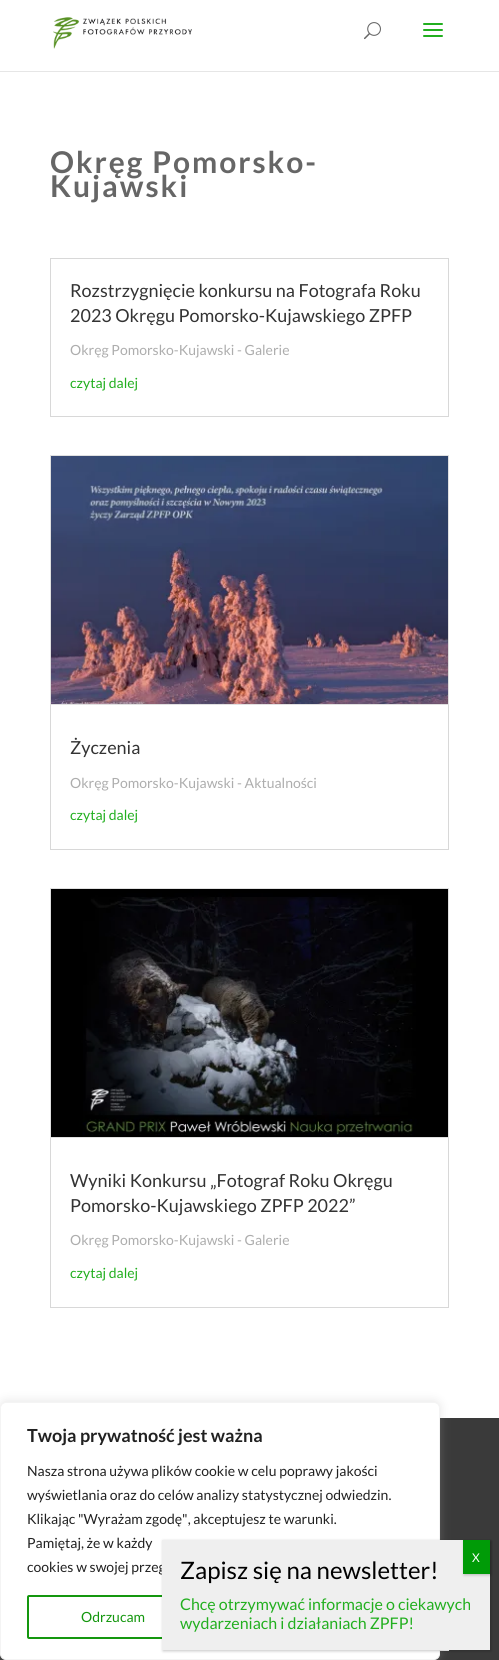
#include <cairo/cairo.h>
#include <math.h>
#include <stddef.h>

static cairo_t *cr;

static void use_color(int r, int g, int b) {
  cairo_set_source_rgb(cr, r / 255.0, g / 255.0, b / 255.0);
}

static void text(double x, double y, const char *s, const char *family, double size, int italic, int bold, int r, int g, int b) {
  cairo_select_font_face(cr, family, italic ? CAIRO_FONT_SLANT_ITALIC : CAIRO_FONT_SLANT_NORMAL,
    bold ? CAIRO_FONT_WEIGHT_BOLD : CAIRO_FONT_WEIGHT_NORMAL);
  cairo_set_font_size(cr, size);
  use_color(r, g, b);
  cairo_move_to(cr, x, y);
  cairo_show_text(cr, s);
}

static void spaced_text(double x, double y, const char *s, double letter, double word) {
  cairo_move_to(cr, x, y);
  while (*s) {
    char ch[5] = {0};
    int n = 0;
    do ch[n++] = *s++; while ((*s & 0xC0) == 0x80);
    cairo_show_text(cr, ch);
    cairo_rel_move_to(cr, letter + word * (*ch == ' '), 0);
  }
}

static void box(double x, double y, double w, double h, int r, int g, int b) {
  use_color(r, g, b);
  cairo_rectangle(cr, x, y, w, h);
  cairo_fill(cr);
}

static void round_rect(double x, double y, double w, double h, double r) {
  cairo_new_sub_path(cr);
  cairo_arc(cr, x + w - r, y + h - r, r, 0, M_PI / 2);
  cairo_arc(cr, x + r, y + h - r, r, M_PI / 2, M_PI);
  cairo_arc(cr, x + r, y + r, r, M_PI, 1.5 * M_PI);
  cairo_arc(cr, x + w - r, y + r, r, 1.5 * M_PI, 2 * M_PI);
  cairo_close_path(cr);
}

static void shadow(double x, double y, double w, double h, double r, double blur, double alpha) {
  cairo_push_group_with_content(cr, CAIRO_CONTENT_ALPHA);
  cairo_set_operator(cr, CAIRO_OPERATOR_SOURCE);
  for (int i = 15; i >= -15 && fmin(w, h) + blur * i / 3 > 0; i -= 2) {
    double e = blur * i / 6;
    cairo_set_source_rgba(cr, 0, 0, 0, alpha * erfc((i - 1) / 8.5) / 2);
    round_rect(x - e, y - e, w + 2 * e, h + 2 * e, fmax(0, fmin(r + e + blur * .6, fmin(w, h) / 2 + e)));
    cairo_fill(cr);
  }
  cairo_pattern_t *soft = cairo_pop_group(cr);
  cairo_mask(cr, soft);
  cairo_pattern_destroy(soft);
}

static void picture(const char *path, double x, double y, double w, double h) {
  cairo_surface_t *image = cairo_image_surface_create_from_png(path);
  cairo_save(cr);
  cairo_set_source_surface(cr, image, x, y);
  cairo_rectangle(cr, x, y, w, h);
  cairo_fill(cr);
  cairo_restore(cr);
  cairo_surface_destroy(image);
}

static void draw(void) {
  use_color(255, 255, 255);
  cairo_paint(cr);
  box(0, 71, 499, 1, 230, 230, 230);
  picture("img_01.png", 53, 17, 139, 32);
  picture("img_02.png", 364, 22, 17, 18);
  picture("img_03.png", 423, 23, 20, 14);
  cairo_rectangle(cr, 50.5, 258.5, 398, 158);
  use_color(216, 216, 216);
  cairo_set_line_width(cr, 1);
  cairo_stroke(cr);
  cairo_rectangle(cr, 50.5, 455.5, 398, 394);
  cairo_stroke(cr);
  cairo_rectangle(cr, 50.5, 455.5, 398, 249);
  use_color(224, 224, 224);
  cairo_stroke(cr);
  picture("img_04.png", 51, 456, 397, 248);
  cairo_rectangle(cr, 50.5, 888.5, 398, 419);
  use_color(216, 216, 216);
  cairo_stroke(cr);
  cairo_rectangle(cr, 50.5, 888.5, 398, 249);
  use_color(224, 224, 224);
  cairo_stroke(cr);
  picture("img_05.png", 51, 889, 397, 248);
  box(0, 1418, 499, 242, 58, 58, 58);
  picture("img_06.png", 440, 1650, 9, 1);
  use_color(172, 171, 171);
  shadow(0, 1401, 440, 258, 6, 5, 0.3);
  use_color(255, 255, 255);
  round_rect(0.5, 1402.5, 439, 257, 5.5);
  cairo_fill_preserve(cr);
  use_color(244, 244, 244);
  cairo_stroke(cr);
  round_rect(28, 1596, 170, 42, 1);
  use_color(20, 151, 14);
  cairo_set_line_width(cr, 2);
  cairo_stroke(cr);
  use_color(2, 2, 2);
  shadow(163, 1541, 328, 110, 0, 1.5, 0.23);
  cairo_select_font_face(cr, "Lato", CAIRO_FONT_SLANT_NORMAL, CAIRO_FONT_WEIGHT_BOLD);
  cairo_set_font_size(cr, 30);
  use_color(102, 102, 102);
  spaced_text(50, 173, "Okręg Pomorsko-", 2, 0);
  spaced_text(50, 197, "Kujawski", 2, 0);
  text(70, 297, "Rozstrzygnięcie konkursu na Fotografa Roku", "Lato", 18, 0, 0, 51, 51, 51);
  text(70, 322, "2023 Okręgu Pomorsko-Kujawskiego ZPFP", "Lato", 18, 0, 0, 51, 51, 51);
  text(70, 355, "Okręg Pomorsko-Kujawski - Galerie", "Lato", 14, 0, 0, 173, 173, 173);
  text(70, 388, "czytaj dalej", "Lato", 14, 0, 0, 34, 175, 31);
  text(70, 754, "Życzenia", "Lato", 18, 0, 0, 51, 51, 51);
  text(70, 788, "Okręg Pomorsko-Kujawski - Aktualności", "Lato", 14, 0, 0, 173, 173, 173);
  text(70, 820, "czytaj dalej", "Lato", 14, 0, 0, 34, 175, 31);
  text(70, 1187, "Wyniki Konkursu „Fotograf Roku Okręgu", "Lato", 18, 0, 0, 51, 51, 51);
  text(70, 1212, "Pomorsko-Kujawskiego ZPFP 2022”", "Lato", 18, 0, 0, 51, 51, 51);
  text(70, 1245, "Okręg Pomorsko-Kujawski - Galerie", "Lato", 14, 0, 0, 173, 173, 173);
  text(70, 1278, "czytaj dalej", "Lato", 14, 0, 0, 34, 175, 31);
  text(27, 1442, "Twoja prywatność jest ważna", "Lato", 18, 0, 1, 33, 33, 33);
  text(27, 1476, "Nasza strona używa plików cookie w celu poprawy jakości", "Lato", 14, 0, 0, 33, 33, 33);
  text(27, 1500, "wyświetlania oraz do celów analizy statystycznej odwiedzin.", "Lato", 14, 0, 0, 33, 33, 33);
  text(27, 1524, "Klikając \"Wyrażam zgodę\", akceptujesz te warunki.", "Lato", 14, 0, 0, 33, 33, 33);
  text(27, 1548, "Pamiętaj, że w każdy", "Lato", 14, 0, 0, 33, 33, 33);
  text(27, 1572, "cookies w swojej przeg", "Lato", 14, 0, 0, 33, 33, 33);
  text(81, 1622, "Odrzucam", "Lato", 14, 0, 0, 20, 151, 14);
  box(162, 1540, 328, 110, 239, 239, 239);
  use_color(2, 2, 2);
  shadow(464, 1541, 27, 34, 0, 1.5, 0.23);
  box(463, 1540, 27, 34, 0, 155, 7);
  text(472, 1562, "X", "Lato", 12, 0, 0, 255, 255, 255);
  text(180, 1579, "Zapisz się na newsletter!", "Lato", 24, 0, 0, 0, 0, 0);
  text(180, 1610, "Chcę otrzymywać informacje o ciekawych", "Lato", 16, 0, 0, 34, 175, 31);
  text(180, 1629, "wydarzeniach i działaniach ZPFP!", "Lato", 16, 0, 0, 34, 175, 31);
}

int main(void) {
  cairo_surface_t *surface = cairo_image_surface_create(CAIRO_FORMAT_RGB24, 499, 1660);
  cr = cairo_create(surface);
  cairo_font_options_t *options = cairo_font_options_create();
  cairo_font_options_set_hint_metrics(options, CAIRO_HINT_METRICS_OFF);
  cairo_font_options_set_hint_style(options, CAIRO_HINT_STYLE_NONE);
  cairo_set_font_options(cr, options);
  cairo_set_miter_limit(cr, 4);
  draw();
  cairo_surface_write_to_png(surface, "out.png");
  cairo_font_options_destroy(options);
  cairo_destroy(cr);
  cairo_surface_destroy(surface);
  return 0;
}
